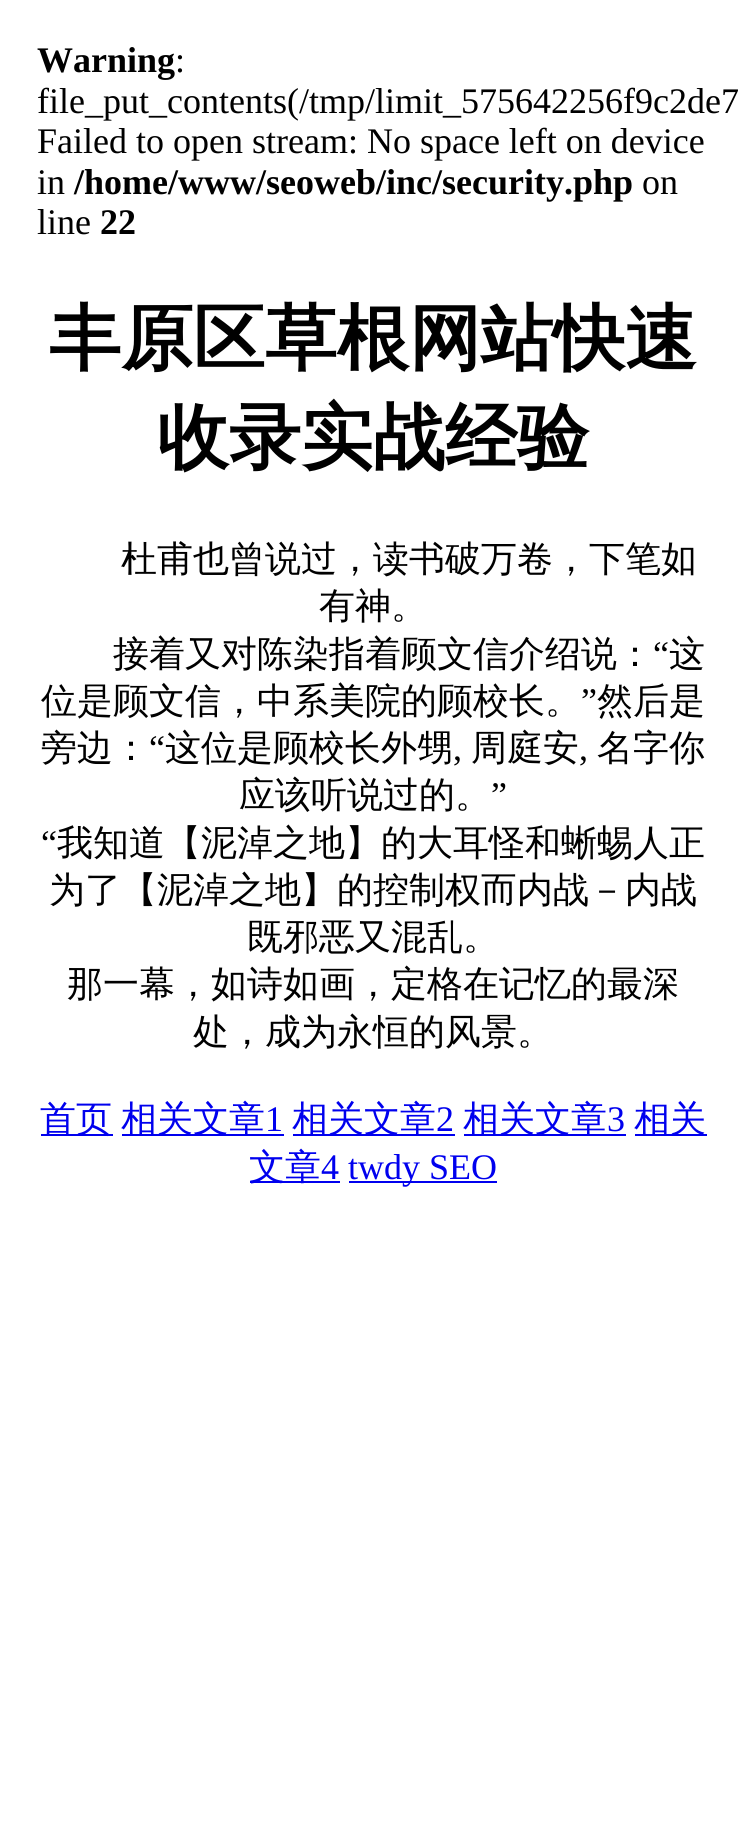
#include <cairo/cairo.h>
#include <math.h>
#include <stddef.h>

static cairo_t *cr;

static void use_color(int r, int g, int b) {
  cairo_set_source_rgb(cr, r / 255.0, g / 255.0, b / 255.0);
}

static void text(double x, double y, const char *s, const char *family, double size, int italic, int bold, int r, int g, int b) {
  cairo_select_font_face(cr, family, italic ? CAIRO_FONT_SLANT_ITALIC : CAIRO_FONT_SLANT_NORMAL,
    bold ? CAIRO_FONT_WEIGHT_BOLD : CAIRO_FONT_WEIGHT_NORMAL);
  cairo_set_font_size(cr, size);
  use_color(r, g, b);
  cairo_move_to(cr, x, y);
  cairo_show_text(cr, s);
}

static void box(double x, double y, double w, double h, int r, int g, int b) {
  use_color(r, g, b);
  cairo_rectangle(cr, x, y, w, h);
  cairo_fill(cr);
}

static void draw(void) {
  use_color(255, 255, 255);
  cairo_paint(cr);
  box(41, 1134, 72, 2, 0, 0, 238);
  box(122, 1134, 162, 2, 0, 0, 238);
  box(293, 1134, 162, 2, 0, 0, 238);
  box(464, 1134, 162, 2, 0, 0, 238);
  box(635, 1134, 72, 2, 0, 0, 238);
  box(250, 1181, 90, 2, 0, 0, 238);
  box(349, 1181, 148, 2, 0, 0, 238);
  text(37, 72, "Warning", "Liberation Serif", 36, 0, 1, 0, 0, 0);
  text(175, 72, ":", "Liberation Serif", 36, 0, 0, 0, 0, 0);
  text(37, 113, "file_put_contents(/tmp/limit_575642256f9c2de7", "Liberation Serif", 36, 0, 0, 0, 0, 0);
  text(37, 153, "Failed to open stream: No space left on device", "Liberation Serif", 36, 0, 0, 0, 0, 0);
  text(37, 194, "in", "Liberation Serif", 36, 0, 0, 0, 0, 0);
  text(74, 194, "/home/www/seoweb/inc/security.php", "Liberation Serif", 36, 0, 1, 0, 0, 0);
  text(642, 194, "on", "Liberation Serif", 36, 0, 0, 0, 0, 0);
  text(37, 234, "line", "Liberation Serif", 36, 0, 0, 0, 0, 0);
  text(100, 234, "22", "Liberation Serif", 36, 0, 1, 0, 0, 0);
  text(49, 363, "丰原区草根网站快速", "WenQuanYi Zen Hei", 72, 0, 1, 0, 0, 0);
  text(157, 462, "收录实战经验", "WenQuanYi Zen Hei", 72, 0, 1, 0, 0, 0);
  text(121, 571, "杜甫也曾说过，读书破万卷，下笔如", "WenQuanYi Zen Hei Medium", 36, 0, 0, 0, 0, 0);
  text(319, 618, "有神。", "WenQuanYi Zen Hei Medium", 36, 0, 0, 0, 0, 0);
  text(113, 666, "接着又对陈染指着顾文信介绍说：", "WenQuanYi Zen Hei Medium", 36, 0, 0, 0, 0, 0);
  text(653, 666, "“", "Liberation Serif", 36, 0, 0, 0, 0, 0);
  text(669, 666, "这", "WenQuanYi Zen Hei Medium", 36, 0, 0, 0, 0, 0);
  text(41, 713, "位是顾文信，中系美院的顾校长。", "WenQuanYi Zen Hei Medium", 36, 0, 0, 0, 0, 0);
  text(581, 713, "”", "Liberation Serif", 36, 0, 0, 0, 0, 0);
  text(597, 713, "然后是", "WenQuanYi Zen Hei Medium", 36, 0, 0, 0, 0, 0);
  text(41, 760, "旁边：", "WenQuanYi Zen Hei Medium", 36, 0, 0, 0, 0, 0);
  text(149, 760, "“", "Liberation Serif", 36, 0, 0, 0, 0, 0);
  text(165, 760, "这位是顾校长外甥", "WenQuanYi Zen Hei Medium", 36, 0, 0, 0, 0, 0);
  text(471, 760, "周庭安", "WenQuanYi Zen Hei Medium", 36, 0, 0, 0, 0, 0);
  text(597, 760, "名字你", "WenQuanYi Zen Hei Medium", 36, 0, 0, 0, 0, 0);
  text(453, 760, ",", "Liberation Serif", 36, 0, 0, 0, 0, 0);
  text(579, 760, ",", "Liberation Serif", 36, 0, 0, 0, 0, 0);
  text(239, 807, "应该听说过的。", "WenQuanYi Zen Hei Medium", 36, 0, 0, 0, 0, 0);
  text(491, 807, "”", "Liberation Serif", 36, 0, 0, 0, 0, 0);
  text(41, 855, "“", "Liberation Serif", 36, 0, 0, 0, 0, 0);
  text(57, 855, "我知道【泥淖之地】的大耳怪和蜥蜴人正", "WenQuanYi Zen Hei Medium", 36, 0, 0, 0, 0, 0);
  text(49, 902, "为了【泥淖之地】的控制权而内战－内战", "WenQuanYi Zen Hei Medium", 36, 0, 0, 0, 0, 0);
  text(247, 949, "既邪恶又混乱。", "WenQuanYi Zen Hei Medium", 36, 0, 0, 0, 0, 0);
  text(67, 996, "那一幕，如诗如画，定格在记忆的最深", "WenQuanYi Zen Hei Medium", 36, 0, 0, 0, 0, 0);
  text(193, 1044, "处，成为永恒的风景。", "WenQuanYi Zen Hei Medium", 36, 0, 0, 0, 0, 0);
  text(40, 1131, "首页", "WenQuanYi Zen Hei Medium", 36, 0, 0, 0, 0, 238);
  text(121, 1131, "相关文章", "WenQuanYi Zen Hei Medium", 36, 0, 0, 0, 0, 238);
  text(265, 1131, "1", "Liberation Serif", 36, 0, 0, 0, 0, 238);
  text(292, 1131, "相关文章", "WenQuanYi Zen Hei Medium", 36, 0, 0, 0, 0, 238);
  text(436, 1131, "2", "Liberation Serif", 36, 0, 0, 0, 0, 238);
  text(463, 1131, "相关文章", "WenQuanYi Zen Hei Medium", 36, 0, 0, 0, 0, 238);
  text(607, 1131, "3", "Liberation Serif", 36, 0, 0, 0, 0, 238);
  text(634, 1131, "相关", "WenQuanYi Zen Hei Medium", 36, 0, 0, 0, 0, 238);
  text(249, 1179, "文章", "WenQuanYi Zen Hei Medium", 36, 0, 0, 0, 0, 238);
  text(321, 1179, "4", "Liberation Serif", 36, 0, 0, 0, 0, 238);
  text(348, 1179, "twdy SEO", "Liberation Serif", 36, 0, 0, 0, 0, 238);
}

int main(void) {
  cairo_surface_t *surface = cairo_image_surface_create(CAIRO_FORMAT_RGB24, 745, 1846);
  cr = cairo_create(surface);
  cairo_font_options_t *options = cairo_font_options_create();
  cairo_font_options_set_hint_metrics(options, CAIRO_HINT_METRICS_OFF);
  cairo_font_options_set_hint_style(options, CAIRO_HINT_STYLE_NONE);
  cairo_set_font_options(cr, options);
  cairo_set_miter_limit(cr, 4);
  draw();
  cairo_surface_write_to_png(surface, "out.png");
  cairo_font_options_destroy(options);
  cairo_destroy(cr);
  cairo_surface_destroy(surface);
  return 0;
}
